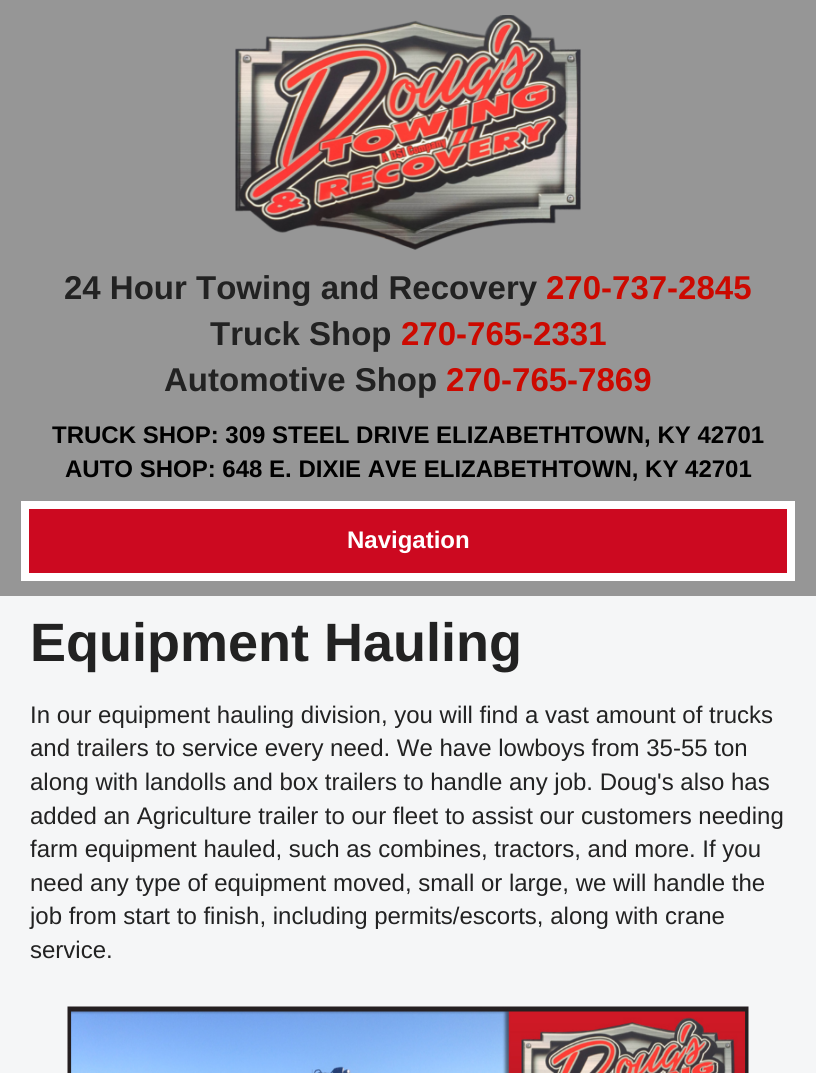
#include <cairo/cairo.h>
#include <math.h>
#include <stddef.h>

static cairo_t *cr;

static void use_color(int r, int g, int b) {
  cairo_set_source_rgb(cr, r / 255.0, g / 255.0, b / 255.0);
}

static void text(double x, double y, const char *s, const char *family, double size, int italic, int bold, int r, int g, int b) {
  cairo_select_font_face(cr, family, italic ? CAIRO_FONT_SLANT_ITALIC : CAIRO_FONT_SLANT_NORMAL,
    bold ? CAIRO_FONT_WEIGHT_BOLD : CAIRO_FONT_WEIGHT_NORMAL);
  cairo_set_font_size(cr, size);
  use_color(r, g, b);
  cairo_move_to(cr, x, y);
  cairo_show_text(cr, s);
}

static void box(double x, double y, double w, double h, int r, int g, int b) {
  use_color(r, g, b);
  cairo_rectangle(cr, x, y, w, h);
  cairo_fill(cr);
}

static void picture(const char *path, double x, double y, double w, double h) {
  cairo_surface_t *image = cairo_image_surface_create_from_png(path);
  cairo_save(cr);
  cairo_set_source_surface(cr, image, x, y);
  cairo_rectangle(cr, x, y, w, h);
  cairo_fill(cr);
  cairo_restore(cr);
  cairo_surface_destroy(image);
}

static void draw(void) {
  use_color(150, 150, 150);
  cairo_paint(cr);
  picture("img_01.png", 235, 15, 346, 235);
  use_color(204, 9, 32);
  cairo_rectangle(cr, 25, 505, 766, 72);
  cairo_fill_preserve(cr);
  use_color(255, 255, 255);
  cairo_set_line_width(cr, 8);
  cairo_stroke(cr);
  box(0, 596, 816, 477, 245, 246, 247);
  picture("img_02.png", 67, 1006, 682, 67);
  text(64, 299, "24 Hour Towing and Recovery", "Liberation Sans", 33, 0, 1, 34, 34, 34);
  text(546, 299, "270-737-2845", "Liberation Sans", 33, 0, 1, 204, 9, 0);
  text(210, 345, "Truck Shop", "Liberation Sans", 33, 0, 1, 34, 34, 34);
  text(401, 345, "270-765-2331", "Liberation Sans", 33, 0, 1, 204, 9, 0);
  text(164, 391, "Automotive Shop", "Liberation Sans", 33, 0, 1, 34, 34, 34);
  text(446, 391, "270-765-7869", "Liberation Sans", 33, 0, 1, 204, 9, 0);
  text(52, 443, "TRUCK SHOP: 309 STEEL DRIVE ELIZABETHTOWN, KY 42701", "Liberation Sans", 24, 0, 1, 0, 0, 0);
  text(65, 477, "AUTO SHOP: 648 E. DIXIE AVE ELIZABETHTOWN, KY 42701", "Liberation Sans", 24, 0, 1, 0, 0, 0);
  text(347, 548, "Navigation", "Liberation Sans", 24, 0, 1, 255, 255, 255);
  text(30, 661, "Equipment Hauling", "Liberation Sans", 54, 0, 1, 34, 34, 34);
  text(30, 723, "In our equipment hauling division, you will find a vast amount of trucks", "Liberation Sans", 24, 0, 0, 34, 34, 34);
  text(30, 756, "and trailers to service every need. We have lowboys from 35-55 ton", "Liberation Sans", 24, 0, 0, 34, 34, 34);
  text(30, 790, "along with landolls and box trailers to handle any job. Doug's also has", "Liberation Sans", 24, 0, 0, 34, 34, 34);
  text(30, 824, "added an Agriculture trailer to our fleet to assist our customers needing", "Liberation Sans", 24, 0, 0, 34, 34, 34);
  text(30, 857, "farm equipment hauled, such as combines, tractors, and more. If you", "Liberation Sans", 24, 0, 0, 34, 34, 34);
  text(30, 891, "need any type of equipment moved, small or large, we will handle the", "Liberation Sans", 24, 0, 0, 34, 34, 34);
  text(30, 924, "job from start to finish, including permits/escorts, along with crane", "Liberation Sans", 24, 0, 0, 34, 34, 34);
  text(30, 958, "service.", "Liberation Sans", 24, 0, 0, 34, 34, 34);
}

int main(void) {
  cairo_surface_t *surface = cairo_image_surface_create(CAIRO_FORMAT_RGB24, 816, 1073);
  cr = cairo_create(surface);
  cairo_font_options_t *options = cairo_font_options_create();
  cairo_font_options_set_hint_metrics(options, CAIRO_HINT_METRICS_OFF);
  cairo_font_options_set_hint_style(options, CAIRO_HINT_STYLE_NONE);
  cairo_set_font_options(cr, options);
  cairo_set_miter_limit(cr, 4);
  draw();
  cairo_surface_write_to_png(surface, "out.png");
  cairo_font_options_destroy(options);
  cairo_destroy(cr);
  cairo_surface_destroy(surface);
  return 0;
}
